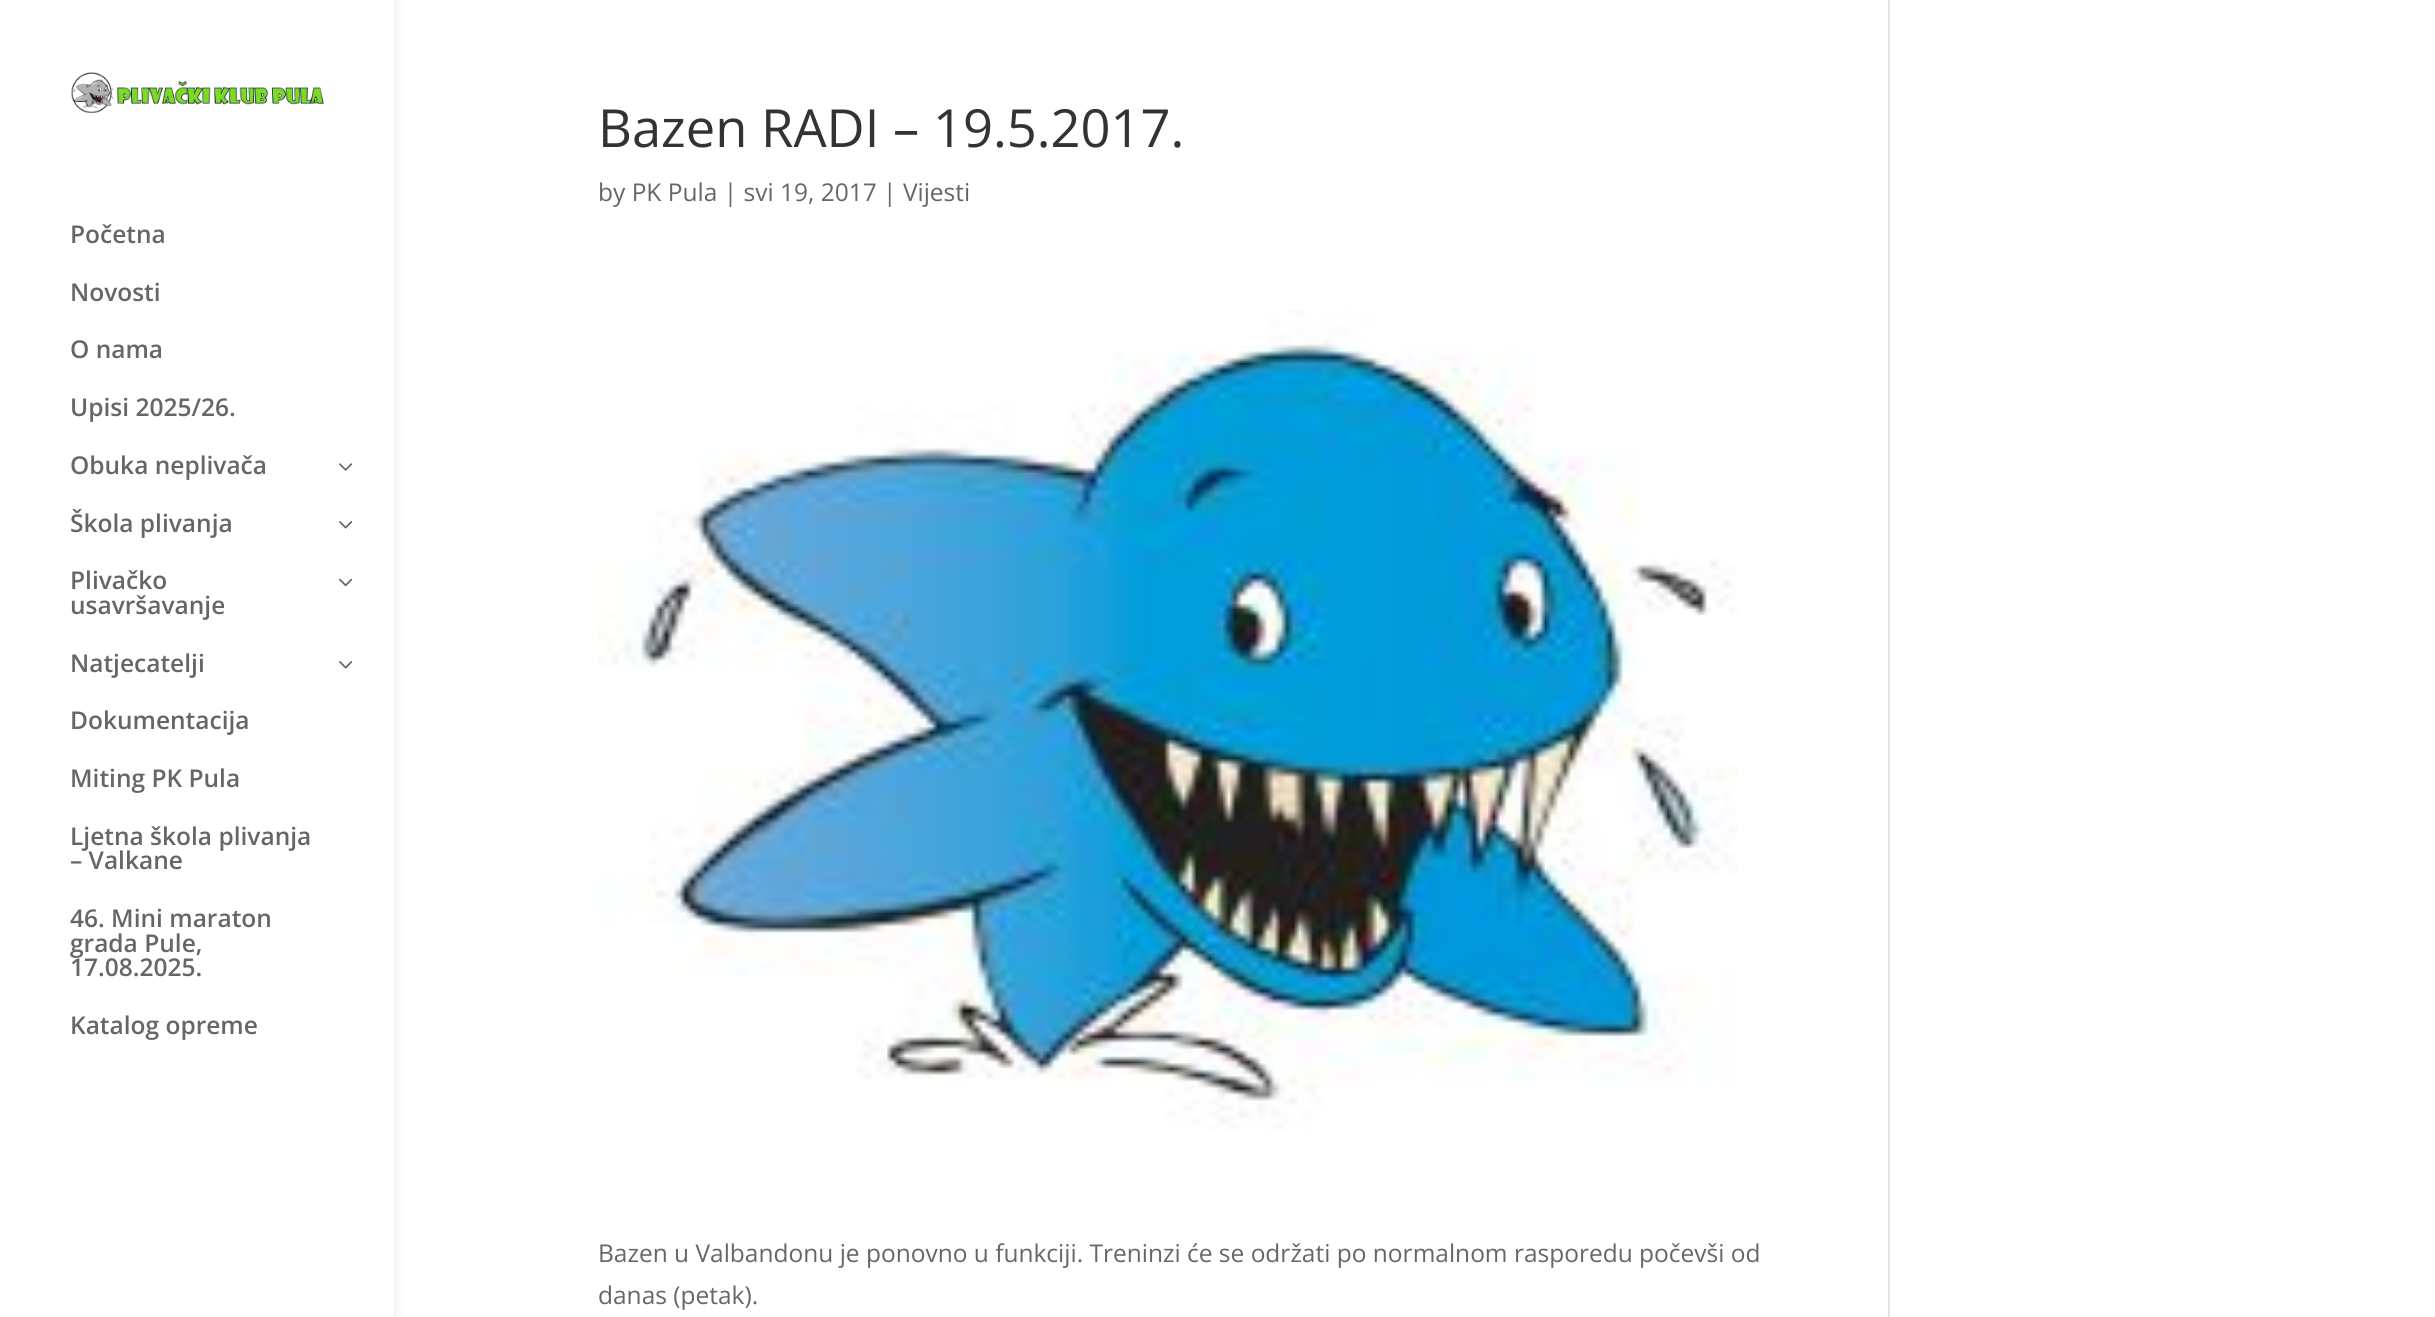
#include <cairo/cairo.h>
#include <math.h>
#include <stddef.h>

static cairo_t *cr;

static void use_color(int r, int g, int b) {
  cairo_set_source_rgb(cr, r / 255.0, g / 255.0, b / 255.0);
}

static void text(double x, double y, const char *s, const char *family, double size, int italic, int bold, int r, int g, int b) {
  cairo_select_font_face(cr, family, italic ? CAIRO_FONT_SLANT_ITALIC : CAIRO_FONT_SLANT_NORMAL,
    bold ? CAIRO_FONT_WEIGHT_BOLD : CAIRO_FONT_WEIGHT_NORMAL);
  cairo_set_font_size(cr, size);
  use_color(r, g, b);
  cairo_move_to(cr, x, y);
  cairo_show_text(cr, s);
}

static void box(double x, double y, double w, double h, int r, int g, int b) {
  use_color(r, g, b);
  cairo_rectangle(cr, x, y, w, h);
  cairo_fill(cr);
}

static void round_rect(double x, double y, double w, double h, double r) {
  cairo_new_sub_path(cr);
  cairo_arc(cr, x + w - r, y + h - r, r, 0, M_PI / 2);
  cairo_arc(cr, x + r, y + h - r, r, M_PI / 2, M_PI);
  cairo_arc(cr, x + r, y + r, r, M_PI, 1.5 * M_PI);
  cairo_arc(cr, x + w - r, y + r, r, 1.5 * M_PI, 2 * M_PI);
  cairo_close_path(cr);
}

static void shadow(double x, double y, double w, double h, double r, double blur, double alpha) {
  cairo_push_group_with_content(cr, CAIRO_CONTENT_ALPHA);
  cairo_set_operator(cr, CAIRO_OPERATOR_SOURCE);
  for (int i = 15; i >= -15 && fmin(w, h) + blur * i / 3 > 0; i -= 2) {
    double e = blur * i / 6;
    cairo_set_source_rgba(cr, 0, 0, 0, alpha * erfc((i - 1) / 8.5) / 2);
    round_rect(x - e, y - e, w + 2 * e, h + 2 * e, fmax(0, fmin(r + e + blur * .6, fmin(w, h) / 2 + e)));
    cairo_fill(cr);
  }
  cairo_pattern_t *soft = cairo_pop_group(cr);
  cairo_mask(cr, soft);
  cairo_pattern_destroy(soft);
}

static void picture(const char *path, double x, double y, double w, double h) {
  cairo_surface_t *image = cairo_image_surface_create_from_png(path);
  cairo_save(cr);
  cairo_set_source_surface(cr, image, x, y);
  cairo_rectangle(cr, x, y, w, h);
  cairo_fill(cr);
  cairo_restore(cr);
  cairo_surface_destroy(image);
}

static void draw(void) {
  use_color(255, 255, 255);
  cairo_paint(cr);
  use_color(0, 0, 0);
  shadow(0, 0, 394, 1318, 0, 6, 0.1);
  box(0, 0, 394, 1317, 255, 255, 255);
  picture("img_01.png", 71, 72, 253, 42);
  picture("img_02.png", 339, 463, 14, 8);
  picture("img_03.png", 339, 521, 14, 8);
  picture("img_04.png", 339, 578, 14, 9);
  picture("img_03.png", 339, 661, 14, 8);
  picture("img_05.png", 598, 310, 1140, 820);
  box(1888, 0, 2, 1317, 226, 226, 226);
  text(70, 243, "Početna", "Open Sans SemiBold", 24.5, 0, 0, 102, 102, 102);
  text(70, 301, "Novosti", "Open Sans SemiBold", 24.5, 0, 0, 102, 102, 102);
  text(70, 358, "O nama", "Open Sans SemiBold", 24.5, 0, 0, 102, 102, 102);
  text(70, 416, "Upisi 2025/26.", "Open Sans SemiBold", 24.5, 0, 0, 102, 102, 102);
  text(70, 474, "Obuka neplivača", "Open Sans SemiBold", 24.5, 0, 0, 102, 102, 102);
  text(70, 532, "Škola plivanja", "Open Sans SemiBold", 24.5, 0, 0, 102, 102, 102);
  text(70, 589, "Plivačko", "Open Sans SemiBold", 24.5, 0, 0, 102, 102, 102);
  text(70, 614, "usavršavanje", "Open Sans SemiBold", 24.5, 0, 0, 102, 102, 102);
  text(70, 672, "Natjecatelji", "Open Sans SemiBold", 24.5, 0, 0, 102, 102, 102);
  text(70, 729, "Dokumentacija", "Open Sans SemiBold", 24.5, 0, 0, 102, 102, 102);
  text(70, 787, "Miting PK Pula", "Open Sans SemiBold", 24.5, 0, 0, 102, 102, 102);
  text(70, 845, "Ljetna škola plivanja", "Open Sans SemiBold", 24.5, 0, 0, 102, 102, 102);
  text(70, 869, "– Valkane", "Open Sans SemiBold", 24.5, 0, 0, 102, 102, 102);
  text(70, 927, "46. Mini maraton", "Open Sans SemiBold", 24.5, 0, 0, 102, 102, 102);
  text(70, 952, "grada Pule,", "Open Sans SemiBold", 24.5, 0, 0, 102, 102, 102);
  text(70, 976, "17.08.2025.", "Open Sans SemiBold", 24.5, 0, 0, 102, 102, 102);
  text(70, 1034, "Katalog opreme", "Open Sans SemiBold", 24.5, 0, 0, 102, 102, 102);
  text(598, 147, "Bazen RADI – 19.5.2017.", "Open Sans", 52.5, 0, 0, 51, 51, 51);
  text(598, 201, "by PK Pula | svi 19, 2017 | Vijesti", "Open Sans", 24.5, 0, 0, 102, 102, 102);
  text(598, 1262, "Bazen u Valbandonu je ponovno u funkciji. Treninzi će se održati po normalnom rasporedu počevši od", "Open Sans", 24.5, 0, 0, 102, 102, 102);
  text(598, 1304, "danas (petak).", "Open Sans", 24.5, 0, 0, 102, 102, 102);
}

int main(void) {
  cairo_surface_t *surface = cairo_image_surface_create(CAIRO_FORMAT_RGB24, 2435, 1317);
  cr = cairo_create(surface);
  cairo_font_options_t *options = cairo_font_options_create();
  cairo_font_options_set_hint_metrics(options, CAIRO_HINT_METRICS_OFF);
  cairo_font_options_set_hint_style(options, CAIRO_HINT_STYLE_NONE);
  cairo_set_font_options(cr, options);
  cairo_set_miter_limit(cr, 4);
  draw();
  cairo_surface_write_to_png(surface, "out.png");
  cairo_font_options_destroy(options);
  cairo_destroy(cr);
  cairo_surface_destroy(surface);
  return 0;
}
